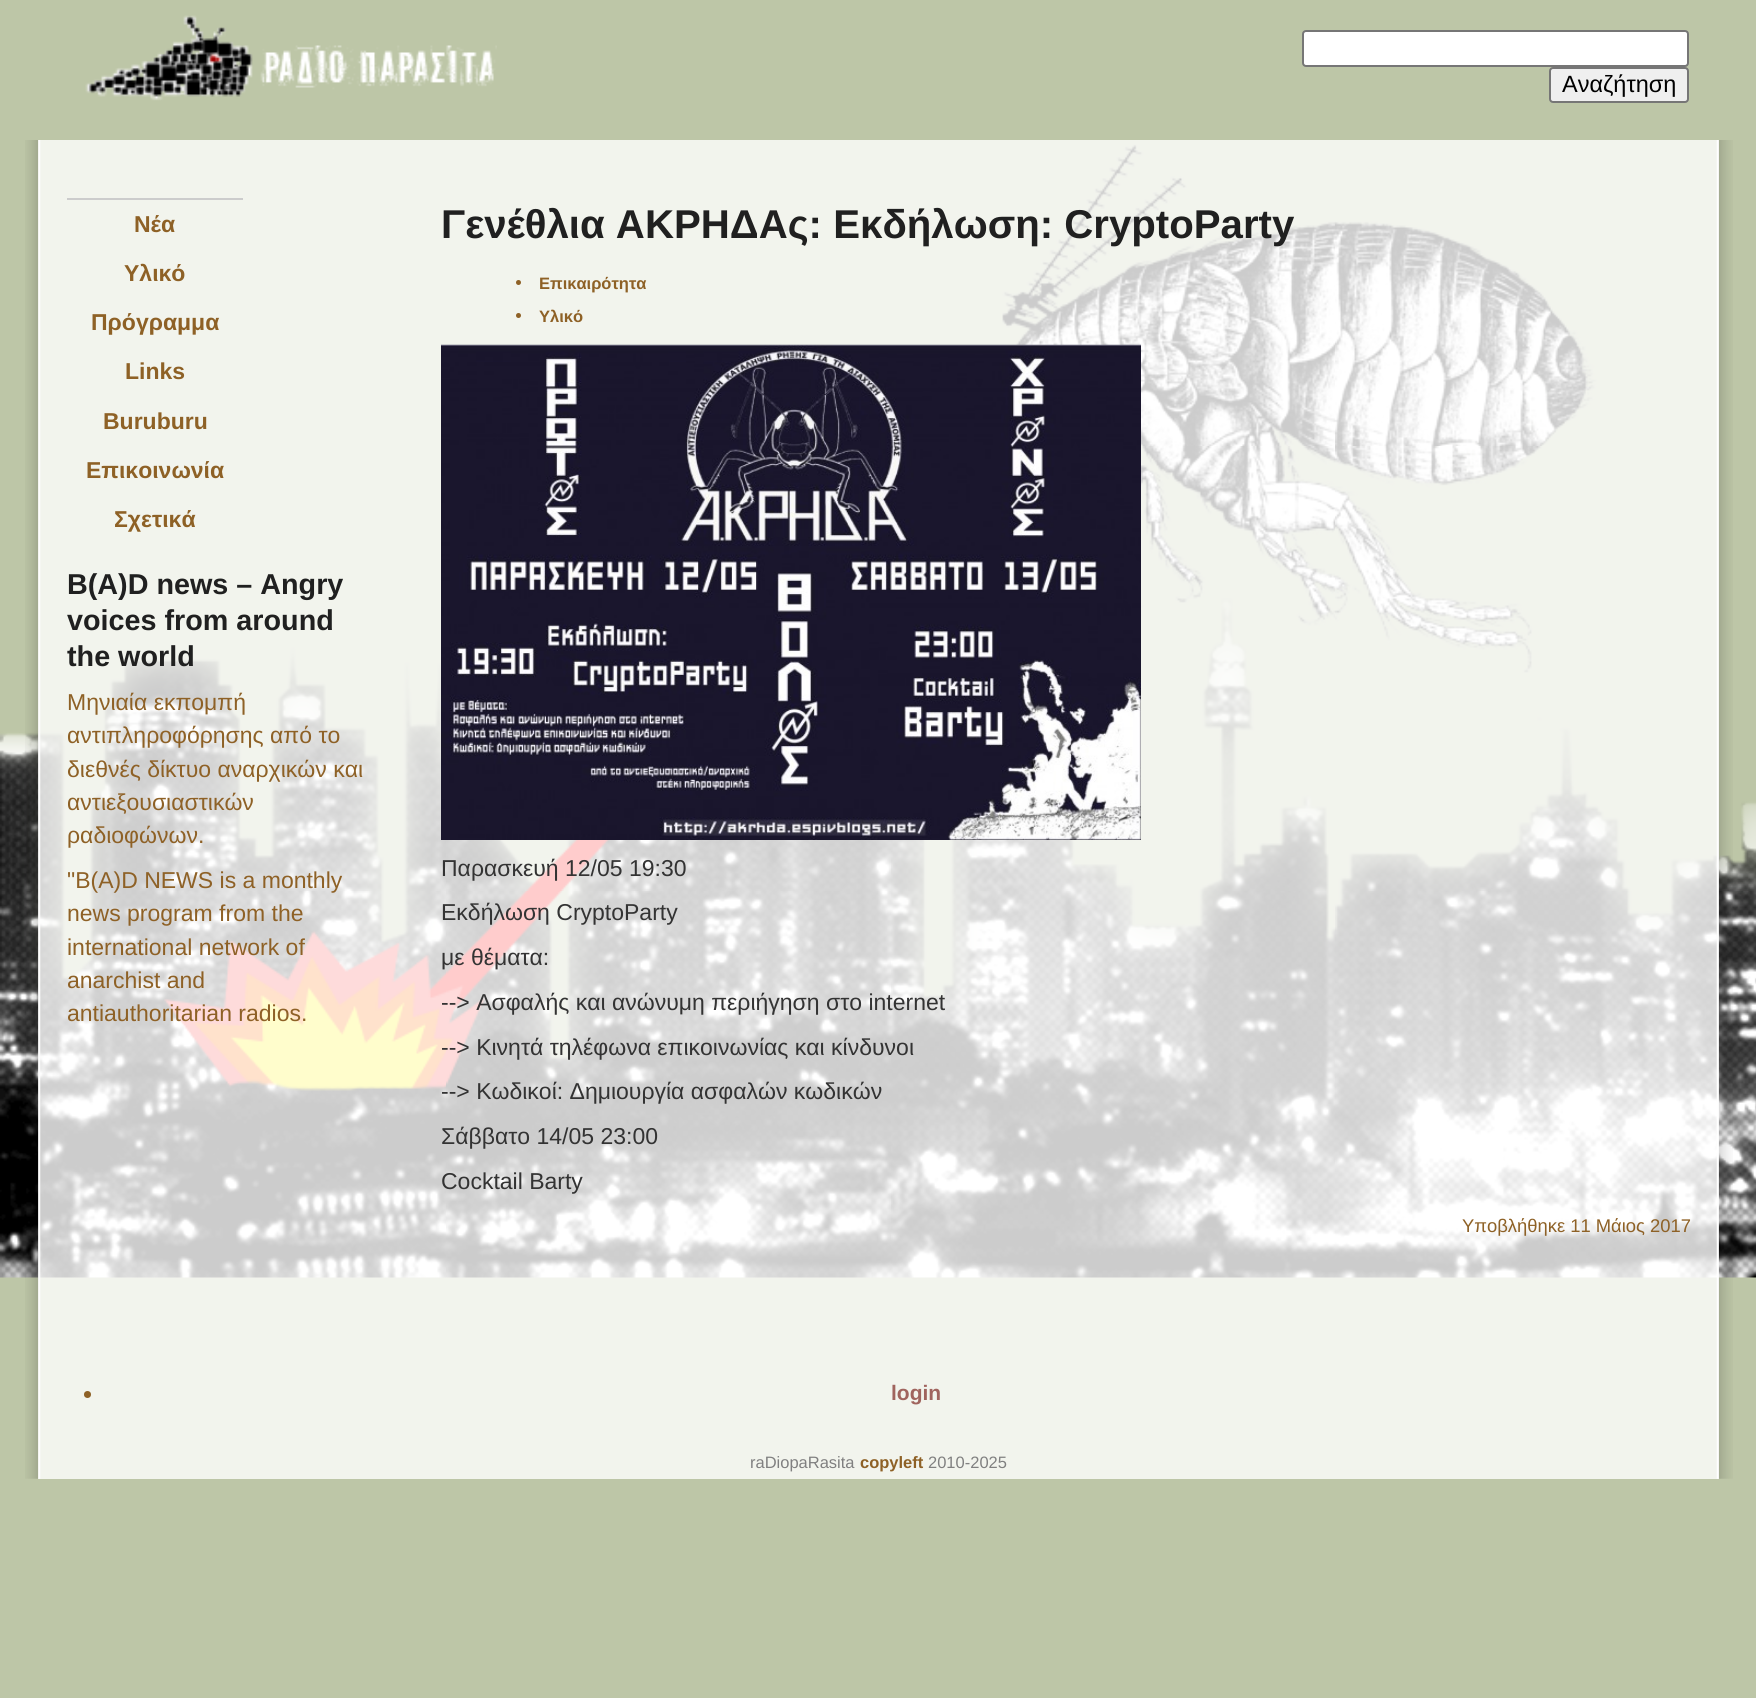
#include <cairo/cairo.h>
#include <math.h>
#include <stddef.h>

static cairo_t *cr;

static void use_color(int r, int g, int b) {
  cairo_set_source_rgb(cr, r / 255.0, g / 255.0, b / 255.0);
}

static void text(double x, double y, const char *s, const char *family, double size, int italic, int bold, int r, int g, int b) {
  cairo_select_font_face(cr, family, italic ? CAIRO_FONT_SLANT_ITALIC : CAIRO_FONT_SLANT_NORMAL,
    bold ? CAIRO_FONT_WEIGHT_BOLD : CAIRO_FONT_WEIGHT_NORMAL);
  cairo_set_font_size(cr, size);
  use_color(r, g, b);
  cairo_move_to(cr, x, y);
  cairo_show_text(cr, s);
}

static void box(double x, double y, double w, double h, int r, int g, int b) {
  use_color(r, g, b);
  cairo_rectangle(cr, x, y, w, h);
  cairo_fill(cr);
}

static void round_rect(double x, double y, double w, double h, double r) {
  cairo_new_sub_path(cr);
  cairo_arc(cr, x + w - r, y + h - r, r, 0, M_PI / 2);
  cairo_arc(cr, x + r, y + h - r, r, M_PI / 2, M_PI);
  cairo_arc(cr, x + r, y + r, r, M_PI, 1.5 * M_PI);
  cairo_arc(cr, x + w - r, y + r, r, 1.5 * M_PI, 2 * M_PI);
  cairo_close_path(cr);
}

static void picture(const char *path, double x, double y, double w, double h) {
  cairo_surface_t *image = cairo_image_surface_create_from_png(path);
  cairo_save(cr);
  cairo_set_source_surface(cr, image, x, y);
  cairo_rectangle(cr, x, y, w, h);
  cairo_fill(cr);
  cairo_restore(cr);
  cairo_surface_destroy(image);
}

static void draw(void) {
  use_color(189, 198, 167);
  cairo_paint(cr);
  picture("img_01.png", 0, 144, 1756, 1134);
  picture("img_02.png", 85, 15, 412, 86);
  use_color(255, 255, 255);
  round_rect(1303, 31, 385, 35, 3);
  cairo_fill_preserve(cr);
  use_color(118, 118, 118);
  cairo_stroke(cr);
  use_color(239, 239, 239);
  round_rect(1550, 68, 138, 34, 3);
  cairo_fill_preserve(cr);
  use_color(118, 118, 118);
  cairo_stroke(cr);
  picture("img_03.png", 25, 140, 16, 1339);
  picture("img_04.png", 1716, 140, 17, 1339);
  cairo_set_source_rgba(cr, 1, 1, 1, 0.8);
  cairo_rectangle(cr, 38, 140, 1681, 1339);
  cairo_fill(cr);
  box(67, 198, 176, 2, 204, 204, 204);
  use_color(142, 97, 38);
  cairo_arc(cr, 518.5, 282.5, 2.5, 0, 2 * M_PI);
  cairo_fill(cr);
  cairo_arc(cr, 518.5, 315.5, 2.5, 0, 2 * M_PI);
  cairo_fill(cr);
  picture("img_05.png", 441, 344, 700, 496);
  cairo_arc(cr, 87.5, 1394.5, 3.5, 0, 2 * M_PI);
  cairo_fill(cr);
  text(1562, 92, "Αναζήτηση", "Liberation Sans", 23.5, 0, 0, 0, 0, 0);
  text(134, 232, "Νέα", "Liberation Sans", 23, 0, 1, 142, 97, 38);
  text(124, 281, "Υλικό", "Liberation Sans", 23, 0, 1, 142, 97, 38);
  text(91, 330, "Πρόγραμμα", "Liberation Sans", 23, 0, 1, 142, 97, 38);
  text(125, 379, "Links", "Liberation Sans", 23, 0, 1, 142, 97, 38);
  text(103, 429, "Buruburu", "Liberation Sans", 23, 0, 1, 142, 97, 38);
  text(86, 478, "Επικοινωνία", "Liberation Sans", 23, 0, 1, 142, 97, 38);
  text(114, 527, "Σχετικά", "Liberation Sans", 23, 0, 1, 142, 97, 38);
  text(67, 594, "B(A)D news – Angry", "Liberation Sans", 28.75, 0, 1, 32, 32, 32);
  text(67, 630, "voices from around", "Liberation Sans", 28.75, 0, 1, 32, 32, 32);
  text(67, 666, "the world", "Liberation Sans", 28.75, 0, 1, 32, 32, 32);
  text(67, 710, "Μηνιαία εκπομπή", "Liberation Sans", 23, 0, 0, 142, 97, 38);
  text(67, 743, "αντιπληροφόρησης από το", "Liberation Sans", 23, 0, 0, 142, 97, 38);
  text(67, 777, "διεθνές δίκτυο αναρχικών και", "Liberation Sans", 23, 0, 0, 142, 97, 38);
  text(67, 810, "αντιεξουσιαστικών", "Liberation Sans", 23, 0, 0, 142, 97, 38);
  text(67, 843, "ραδιοφώνων.", "Liberation Sans", 23, 0, 0, 142, 97, 38);
  text(67, 888, "\"B(A)D NEWS is a monthly", "Liberation Sans", 23, 0, 0, 142, 97, 38);
  text(67, 921, "news program from the", "Liberation Sans", 23, 0, 0, 142, 97, 38);
  text(67, 955, "international network of", "Liberation Sans", 23, 0, 0, 142, 97, 38);
  text(67, 988, "anarchist and", "Liberation Sans", 23, 0, 0, 142, 97, 38);
  text(67, 1021, "antiauthoritarian radios.", "Liberation Sans", 23, 0, 0, 142, 97, 38);
  text(441, 238, "Γενέθλια ΑΚΡΗΔΑς: Εκδήλωση: CryptoParty", "Liberation Sans", 40.2, 0, 1, 32, 32, 32);
  text(539, 289, "Επικαιρότητα", "Liberation Sans", 16.5, 0, 1, 142, 97, 38);
  text(539, 322, "Υλικό", "Liberation Sans", 16.5, 0, 1, 142, 97, 38);
  text(441, 876, "Παρασκευή 12/05 19:30", "Liberation Sans", 23, 0, 0, 51, 51, 51);
  text(441, 920, "Εκδήλωση CryptoParty", "Liberation Sans", 23, 0, 0, 51, 51, 51);
  text(441, 965, "με θέματα:", "Liberation Sans", 23, 0, 0, 51, 51, 51);
  text(441, 1010, "--> Ασφαλής και ανώνυμη περιήγηση στο internet", "Liberation Sans", 23, 0, 0, 51, 51, 51);
  text(441, 1055, "--> Κινητά τηλέφωνα επικοινωνίας και κίνδυνοι", "Liberation Sans", 23, 0, 0, 51, 51, 51);
  text(441, 1099, "--> Κωδικοί: Δημιουργία ασφαλών κωδικών", "Liberation Sans", 23, 0, 0, 51, 51, 51);
  text(441, 1144, "Σάββατο 14/05 23:00", "Liberation Sans", 23, 0, 0, 51, 51, 51);
  text(441, 1189, "Cocktail Barty", "Liberation Sans", 23, 0, 0, 51, 51, 51);
  text(1462, 1232, "Υποβλήθηκε 11 Μάιος 2017", "Liberation Sans", 18.4, 0, 0, 142, 97, 38);
  text(891, 1400, "login", "Liberation Sans", 21, 0, 1, 160, 100, 94);
  text(750, 1468, "raDiopaRasita", "Liberation Sans", 16.5, 0, 0, 128, 128, 128);
  text(860, 1468, "copyleft", "Liberation Sans", 16.5, 0, 1, 142, 97, 38);
  text(928, 1468, "2010-2025", "Liberation Sans", 16.5, 0, 0, 128, 128, 128);
}

int main(void) {
  cairo_surface_t *surface = cairo_image_surface_create(CAIRO_FORMAT_RGB24, 1756, 1698);
  cr = cairo_create(surface);
  cairo_font_options_t *options = cairo_font_options_create();
  cairo_font_options_set_hint_metrics(options, CAIRO_HINT_METRICS_OFF);
  cairo_font_options_set_hint_style(options, CAIRO_HINT_STYLE_NONE);
  cairo_set_font_options(cr, options);
  cairo_set_miter_limit(cr, 4);
  draw();
  cairo_surface_write_to_png(surface, "out.png");
  cairo_font_options_destroy(options);
  cairo_destroy(cr);
  cairo_surface_destroy(surface);
  return 0;
}
